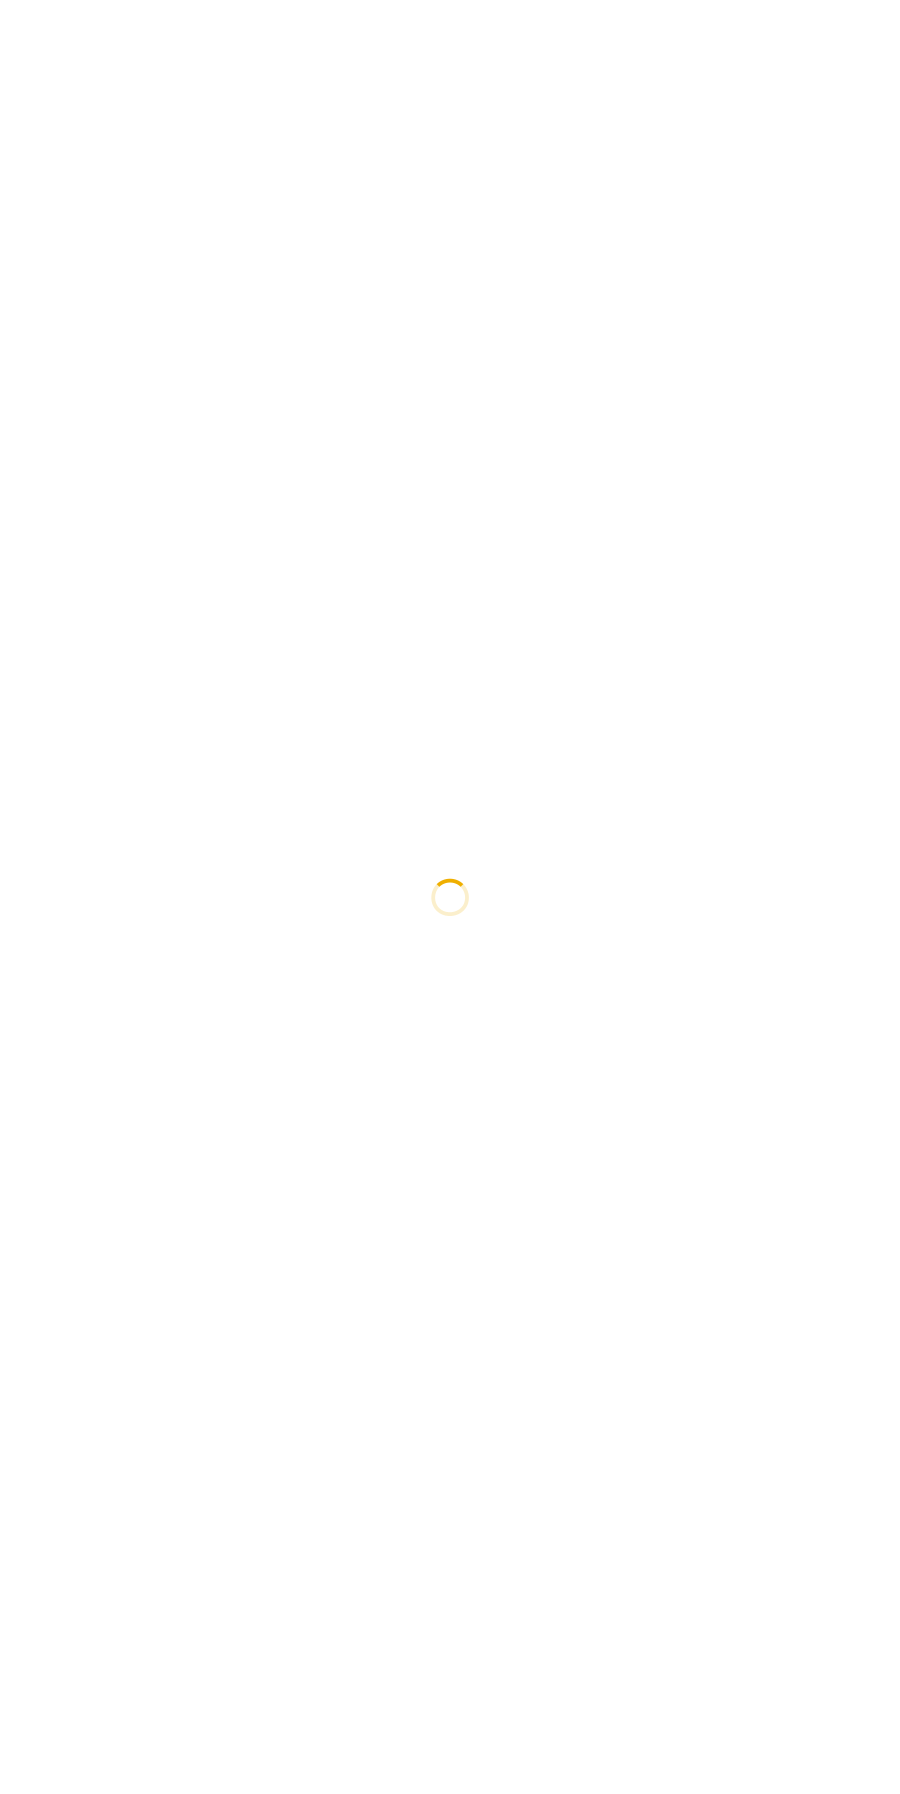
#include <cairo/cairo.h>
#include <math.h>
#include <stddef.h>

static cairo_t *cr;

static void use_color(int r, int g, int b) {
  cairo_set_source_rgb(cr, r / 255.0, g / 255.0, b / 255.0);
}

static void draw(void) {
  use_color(255, 255, 255);
  cairo_paint(cr);
  cairo_new_path(cr);
  cairo_move_to(cr, 438, 885.5);
  cairo_curve_to(cr, 444.5, 879, 455.5, 879, 462, 885.5);
  use_color(239, 175, 0);
  cairo_set_line_width(cr, 3.8);
  cairo_stroke(cr);
  cairo_new_path(cr);
  cairo_move_to(cr, 462, 885.5);
  cairo_curve_to(cr, 465, 888.5, 467, 893, 467, 897.5);
  cairo_curve_to(cr, 467, 917.5, 437.5, 920.5, 433.5, 901);
  cairo_curve_to(cr, 432.5, 895.5, 434, 889.5, 438, 885.5);
  cairo_set_source_rgba(cr, 0.937, 0.686, 0, 0.2);
  cairo_stroke(cr);
}

int main(void) {
  cairo_surface_t *surface = cairo_image_surface_create(CAIRO_FORMAT_RGB24, 900, 1794);
  cr = cairo_create(surface);
  cairo_font_options_t *options = cairo_font_options_create();
  cairo_font_options_set_hint_metrics(options, CAIRO_HINT_METRICS_OFF);
  cairo_font_options_set_hint_style(options, CAIRO_HINT_STYLE_NONE);
  cairo_set_font_options(cr, options);
  cairo_set_miter_limit(cr, 4);
  draw();
  cairo_surface_write_to_png(surface, "out.png");
  cairo_font_options_destroy(options);
  cairo_destroy(cr);
  cairo_surface_destroy(surface);
  return 0;
}
